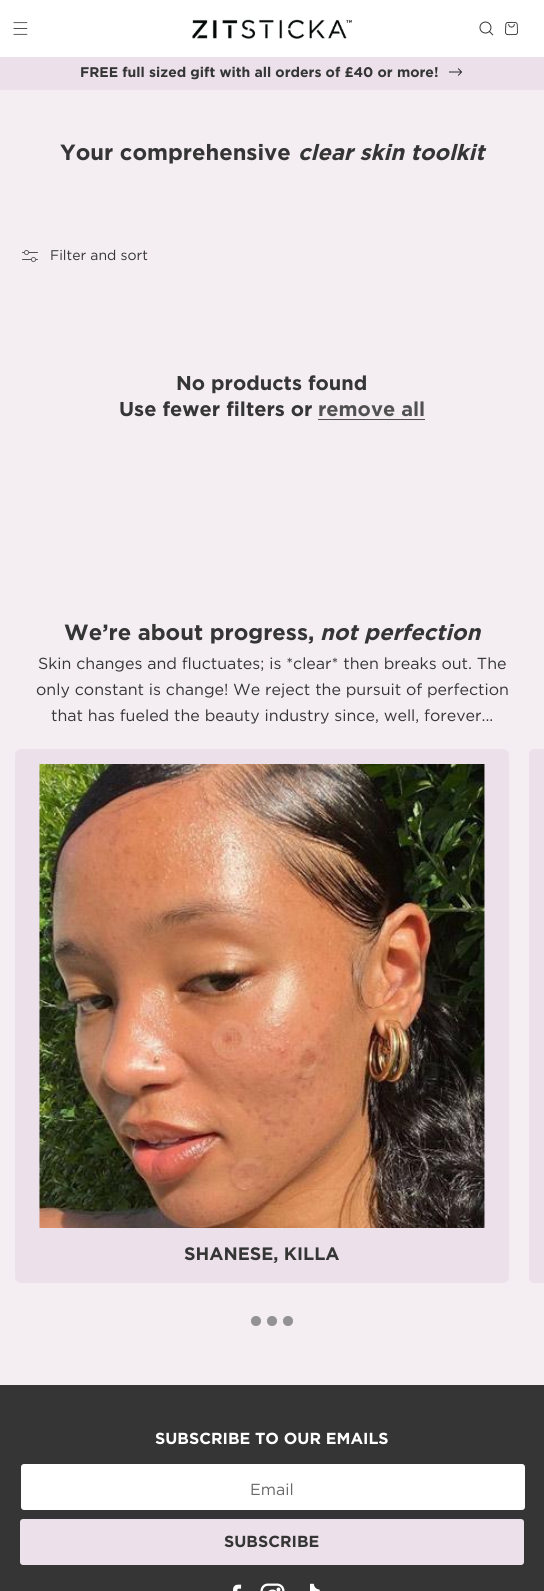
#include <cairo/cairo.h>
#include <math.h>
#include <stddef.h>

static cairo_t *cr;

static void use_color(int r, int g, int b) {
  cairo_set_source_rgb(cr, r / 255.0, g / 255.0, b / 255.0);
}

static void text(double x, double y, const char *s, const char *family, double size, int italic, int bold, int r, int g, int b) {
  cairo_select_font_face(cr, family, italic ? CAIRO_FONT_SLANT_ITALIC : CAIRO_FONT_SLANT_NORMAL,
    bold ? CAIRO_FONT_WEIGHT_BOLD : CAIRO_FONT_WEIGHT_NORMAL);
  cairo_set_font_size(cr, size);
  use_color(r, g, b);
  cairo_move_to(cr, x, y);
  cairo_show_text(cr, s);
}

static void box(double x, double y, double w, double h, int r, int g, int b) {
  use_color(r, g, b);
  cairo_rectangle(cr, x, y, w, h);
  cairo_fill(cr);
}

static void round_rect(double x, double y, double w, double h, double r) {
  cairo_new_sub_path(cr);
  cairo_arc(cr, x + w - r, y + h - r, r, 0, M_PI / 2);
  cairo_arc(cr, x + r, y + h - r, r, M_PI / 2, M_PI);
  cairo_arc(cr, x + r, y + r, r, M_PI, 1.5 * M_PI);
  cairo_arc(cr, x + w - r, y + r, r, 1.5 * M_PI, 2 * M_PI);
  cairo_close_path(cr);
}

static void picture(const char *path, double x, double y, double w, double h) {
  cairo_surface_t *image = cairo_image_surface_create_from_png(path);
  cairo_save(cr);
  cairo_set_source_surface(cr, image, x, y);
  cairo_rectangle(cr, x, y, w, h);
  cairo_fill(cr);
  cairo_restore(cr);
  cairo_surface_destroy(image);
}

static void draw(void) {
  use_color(244, 237, 242);
  cairo_paint(cr);
  box(0, 0, 544, 57, 255, 255, 255);
  picture("img_01.png", 13, 22, 15, 13);
  picture("img_02.png", 192, 19, 160, 20);
  picture("img_03.png", 479, 21, 15, 15);
  picture("img_04.png", 505, 21, 13, 15);
  box(0, 57, 544, 33, 236, 224, 235);
  picture("img_05.png", 449, 68, 13, 8);
  picture("img_06.png", 22, 250, 16, 12);
  box(318, 419, 107, 1, 81, 81, 81);
  use_color(236, 224, 235);
  round_rect(15, 749, 494, 534, 6);
  cairo_fill(cr);
  picture("img_07.png", 39, 764, 446, 464);
  cairo_new_path(cr);
  cairo_move_to(cr, 535, 749);
  cairo_line_to(cr, 544, 749);
  cairo_line_to(cr, 544, 1283);
  cairo_line_to(cr, 535, 1283);
  cairo_curve_to(cr, 531.5, 1283, 529, 1280.5, 529, 1277);
  cairo_line_to(cr, 529, 755);
  cairo_curve_to(cr, 529, 751.5, 531.5, 749, 535, 749);
  cairo_close_path(cr);
  cairo_fill(cr);
  use_color(148, 145, 147);
  cairo_arc(cr, 256, 1321, 5, 0, 2 * M_PI);
  cairo_fill(cr);
  cairo_arc(cr, 272, 1321, 5, 0, 2 * M_PI);
  cairo_fill(cr);
  cairo_arc(cr, 288, 1321, 5, 0, 2 * M_PI);
  cairo_fill(cr);
  box(0, 1385, 544, 206, 52, 53, 52);
  use_color(255, 255, 255);
  round_rect(21, 1464, 504, 46, 3);
  cairo_fill(cr);
  use_color(236, 224, 235);
  round_rect(20, 1519, 504, 46, 3);
  cairo_fill(cr);
  picture("img_08.png", 233, 1584, 9, 7);
  picture("img_09.png", 260, 1583, 25, 8);
  picture("img_10.png", 310, 1583, 10, 8);
  text(80, 77, "FREE full sized gift with all orders of £40 or more!", "Gotham", 14, 0, 1, 52, 53, 52);
  text(60, 160, "Your comprehensive", "Gotham", 22, 0, 1, 52, 53, 52);
  text(298, 160, "clear skin toolkit", "Gotham", 22, 1, 1, 52, 53, 52);
  text(50, 260, "Filter and sort", "Gotham", 14, 0, 0, 52, 53, 52);
  text(176, 390, "No products found", "Gotham", 20, 0, 1, 52, 53, 52);
  text(119, 416, "Use fewer filters or", "Gotham", 20, 0, 1, 52, 53, 52);
  text(318, 416, "remove all", "Gotham", 20, 0, 1, 81, 81, 81);
  text(64, 640, "We’re about progress,", "Gotham", 22, 0, 1, 52, 53, 52);
  text(320, 640, "not perfection", "Gotham", 22, 1, 1, 52, 53, 52);
  text(38, 669, "Skin changes and fluctuates; is *clear* then breaks out. The", "Gotham", 16, 0, 0, 52, 53, 52);
  text(36, 695, "only constant is change! We reject the pursuit of perfection", "Gotham", 16, 0, 0, 52, 53, 52);
  text(51, 721, "that has fueled the beauty industry since, well, forever...", "Gotham", 16, 0, 0, 52, 53, 52);
  text(184, 1260, "SHANESE, KILLA", "Gotham", 18, 0, 1, 52, 53, 52);
  text(155, 1444, "SUBSCRIBE TO OUR EMAILS", "Gotham", 16, 0, 1, 255, 255, 255);
  text(250, 1495, "Email", "Gotham", 16, 0, 0, 103, 104, 103);
  text(224, 1547, "SUBSCRIBE", "Gotham", 16, 0, 1, 52, 53, 52);
}

int main(void) {
  cairo_surface_t *surface = cairo_image_surface_create(CAIRO_FORMAT_RGB24, 544, 1591);
  cr = cairo_create(surface);
  cairo_font_options_t *options = cairo_font_options_create();
  cairo_font_options_set_hint_metrics(options, CAIRO_HINT_METRICS_OFF);
  cairo_font_options_set_hint_style(options, CAIRO_HINT_STYLE_NONE);
  cairo_set_font_options(cr, options);
  cairo_set_miter_limit(cr, 4);
  draw();
  cairo_surface_write_to_png(surface, "out.png");
  cairo_font_options_destroy(options);
  cairo_destroy(cr);
  cairo_surface_destroy(surface);
  return 0;
}
